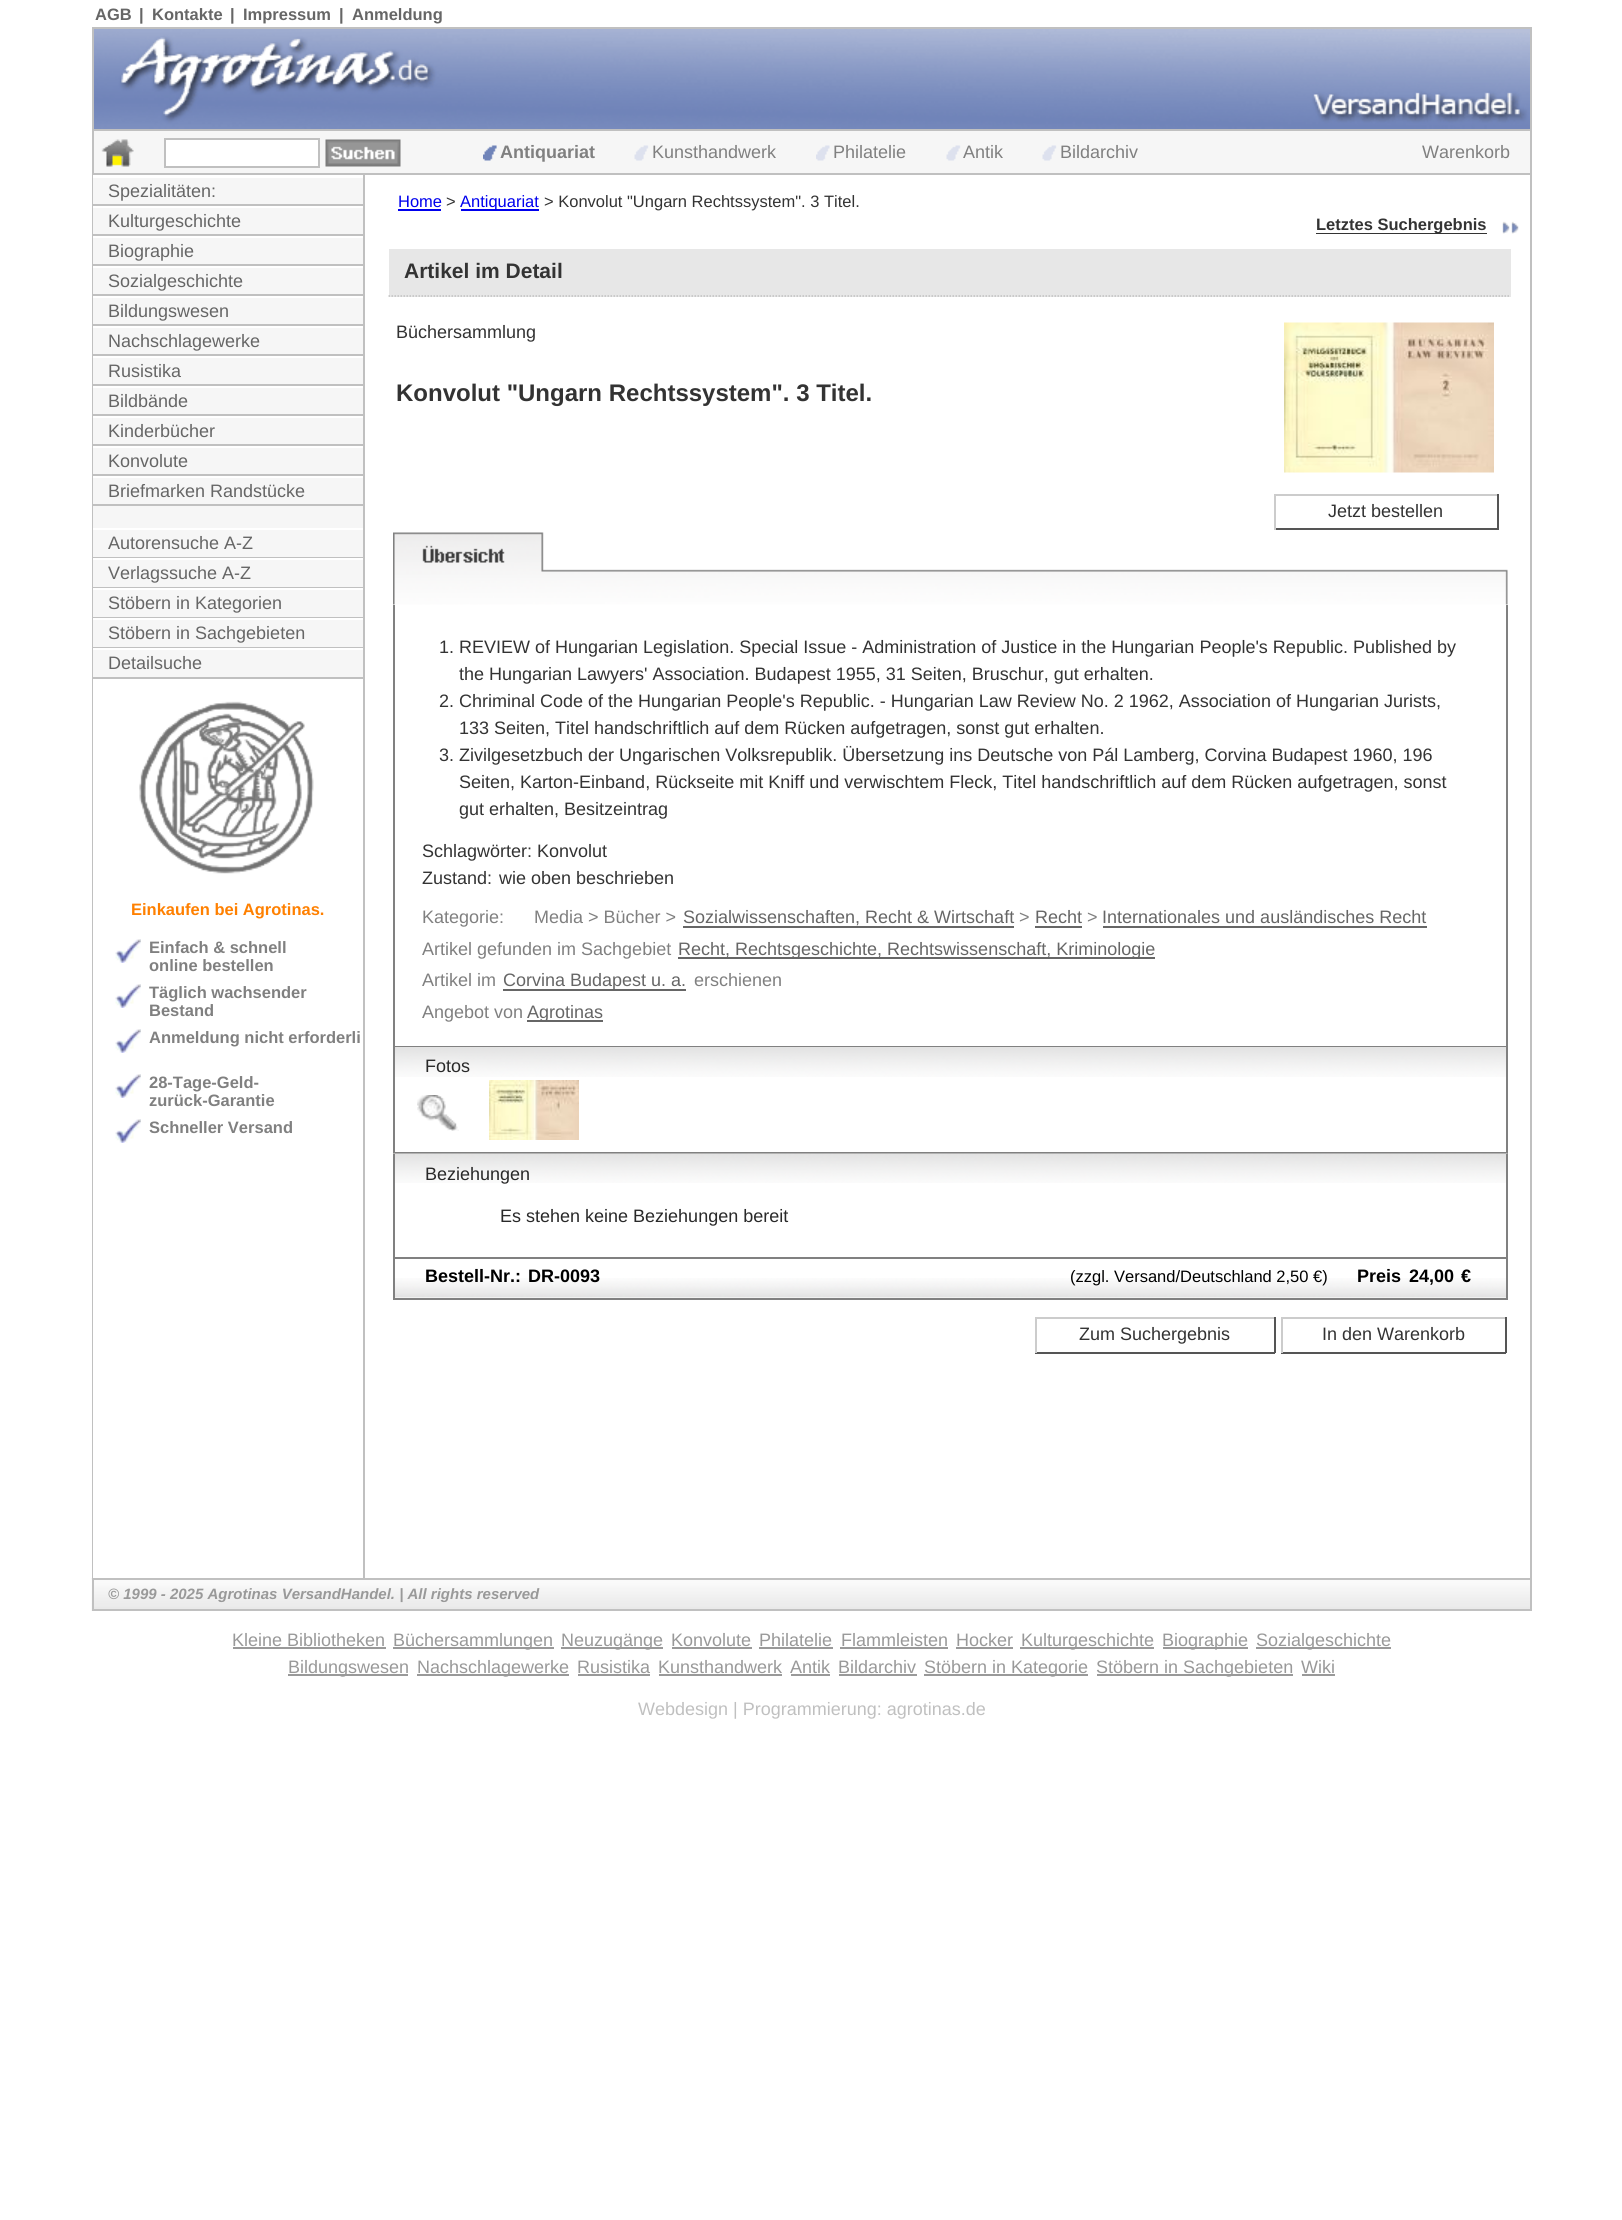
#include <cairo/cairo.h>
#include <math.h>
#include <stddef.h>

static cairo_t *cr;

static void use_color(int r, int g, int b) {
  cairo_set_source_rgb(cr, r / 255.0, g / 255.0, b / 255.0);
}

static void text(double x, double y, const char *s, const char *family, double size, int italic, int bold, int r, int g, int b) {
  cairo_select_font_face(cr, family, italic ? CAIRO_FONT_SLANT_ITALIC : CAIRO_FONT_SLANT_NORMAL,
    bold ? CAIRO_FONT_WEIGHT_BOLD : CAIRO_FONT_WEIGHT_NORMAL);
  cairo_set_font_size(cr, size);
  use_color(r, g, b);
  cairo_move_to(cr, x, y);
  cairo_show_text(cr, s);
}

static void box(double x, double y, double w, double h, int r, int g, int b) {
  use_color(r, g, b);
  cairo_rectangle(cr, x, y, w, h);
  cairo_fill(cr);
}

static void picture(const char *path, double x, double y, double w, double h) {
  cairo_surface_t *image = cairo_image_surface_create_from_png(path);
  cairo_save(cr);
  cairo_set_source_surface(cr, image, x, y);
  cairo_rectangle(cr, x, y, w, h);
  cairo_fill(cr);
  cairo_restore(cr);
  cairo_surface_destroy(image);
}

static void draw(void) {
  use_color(255, 255, 255);
  cairo_paint(cr);
  picture("img_01.png", 94, 29, 1436, 100);
  cairo_rectangle(cr, 93, 28, 1438, 102);
  use_color(192, 192, 192);
  cairo_stroke(cr);
  box(94, 131, 1436, 42, 246, 246, 246);
  box(1530, 131, 2, 43, 192, 192, 192);
  box(1530, 174, 2, 1404, 192, 192, 192);
  box(92, 174, 1, 1404, 192, 192, 192);
  box(363, 174, 2, 1404, 192, 192, 192);
  box(92, 173, 1440, 2, 192, 192, 192);
  box(92, 131, 2, 43, 192, 192, 192);
  picture("img_02.png", 101, 139, 33, 28);
  use_color(255, 255, 255);
  cairo_rectangle(cr, 165, 139, 154, 28);
  cairo_fill_preserve(cr);
  use_color(192, 192, 192);
  cairo_stroke(cr);
  picture("img_03.png", 325, 139, 76, 28);
  picture("img_04.png", 483, 145, 14, 16);
  picture("img_05.png", 634, 145, 15, 16);
  picture("img_06.png", 816, 145, 14, 16);
  picture("img_07.png", 946, 145, 15, 16);
  picture("img_05.png", 1042, 145, 15, 16);
  box(93, 178, 270, 499, 246, 246, 246);
  box(93, 204, 270, 2, 192, 192, 192);
  box(93, 206, 270, 2, 255, 255, 255);
  box(93, 234, 270, 2, 192, 192, 192);
  box(93, 236, 270, 2, 255, 255, 255);
  box(93, 264, 270, 2, 192, 192, 192);
  box(93, 266, 270, 2, 255, 255, 255);
  box(93, 294, 270, 2, 192, 192, 192);
  box(93, 296, 270, 2, 255, 255, 255);
  box(93, 324, 270, 2, 192, 192, 192);
  box(93, 326, 270, 2, 255, 255, 255);
  box(93, 354, 270, 2, 192, 192, 192);
  box(93, 356, 270, 2, 255, 255, 255);
  box(93, 384, 270, 2, 192, 192, 192);
  box(93, 386, 270, 2, 255, 255, 255);
  box(93, 414, 270, 2, 192, 192, 192);
  box(93, 416, 270, 2, 255, 255, 255);
  box(93, 444, 270, 2, 192, 192, 192);
  box(93, 446, 270, 2, 255, 255, 255);
  box(93, 474, 270, 2, 192, 192, 192);
  box(93, 476, 270, 2, 255, 255, 255);
  box(93, 504, 270, 2, 192, 192, 192);
  box(93, 528, 270, 2, 255, 255, 255);
  box(93, 557, 270, 1, 192, 192, 192);
  box(93, 558, 270, 2, 255, 255, 255);
  box(93, 587, 270, 1, 192, 192, 192);
  box(93, 588, 270, 2, 255, 255, 255);
  box(93, 617, 270, 1, 192, 192, 192);
  box(93, 618, 270, 2, 255, 255, 255);
  box(93, 647, 270, 1, 192, 192, 192);
  box(93, 648, 270, 2, 255, 255, 255);
  box(93, 677, 270, 2, 192, 192, 192);
  picture("img_08.png", 139, 701, 175, 173);
  picture("img_09.png", 115, 939, 26, 24);
  picture("img_09.png", 115, 984, 26, 24);
  picture("img_09.png", 115, 1029, 26, 24);
  picture("img_09.png", 115, 1074, 26, 24);
  picture("img_09.png", 115, 1119, 26, 24);
  box(398, 209, 43, 2, 0, 0, 238);
  box(461, 209, 78, 2, 0, 0, 238);
  box(1316, 233, 171, 1, 51, 51, 51);
  picture("img_10.png", 1502, 221, 17, 13);
  box(389, 249, 1122, 48, 231, 231, 231);
  cairo_new_path(cr);
  cairo_move_to(cr, 388.5, 296);
  cairo_line_to(cr, 1510.5, 296);
  use_color(192, 192, 192);
  cairo_set_line_width(cr, 1.5);
  cairo_set_dash(cr, (double[]){1.5, 1.5}, 2, 0);
  cairo_stroke(cr);
  picture("img_11.png", 1284, 322, 210, 151);
  box(1274, 494, 225, 2, 204, 204, 204);
  box(1497, 494, 2, 36, 85, 85, 85);
  box(1274, 528, 225, 2, 85, 85, 85);
  box(1274, 494, 2, 36, 204, 204, 204);
  picture("img_12.png", 393, 532, 1115, 73);
  box(1506, 605, 2, 549, 128, 128, 128);
  box(393, 1046, 1115, 1, 128, 128, 128);
  box(393, 605, 2, 442, 128, 128, 128);
  box(683, 926, 331, 2, 102, 102, 102);
  box(1035, 926, 47, 2, 102, 102, 102);
  box(1103, 926, 324, 2, 102, 102, 102);
  box(678, 957, 477, 2, 102, 102, 102);
  box(503, 989, 183, 2, 102, 102, 102);
  box(527, 1020, 76, 2, 102, 102, 102);
  picture("img_13.png", 395, 1047, 1111, 30);
  box(393, 1152, 1115, 2, 128, 128, 128);
  box(393, 1047, 2, 107, 128, 128, 128);
  picture("img_14.png", 417, 1095, 42, 36);
  picture("img_15.png", 489, 1080, 90, 60);
  picture("img_16.png", 393, 1153, 1115, 30);
  box(1506, 1154, 2, 105, 128, 128, 128);
  box(393, 1257, 1115, 2, 128, 128, 128);
  box(393, 1154, 2, 105, 128, 128, 128);
  picture("img_17.png", 395, 1278, 1111, 20);
  box(1506, 1259, 2, 40, 128, 128, 128);
  box(393, 1298, 1115, 2, 128, 128, 128);
  box(393, 1259, 2, 40, 128, 128, 128);
  box(1035, 1317, 240, 2, 204, 204, 204);
  box(1274, 1317, 2, 36, 85, 85, 85);
  box(1035, 1352, 240, 2, 85, 85, 85);
  box(1035, 1317, 2, 36, 204, 204, 204);
  box(1281, 1317, 225, 2, 204, 204, 204);
  box(1505, 1317, 2, 36, 85, 85, 85);
  box(1281, 1352, 225, 2, 85, 85, 85);
  box(1281, 1317, 2, 36, 204, 204, 204);
  picture("img_18.png", 91, 1578, 1439, 33);
  cairo_rectangle(cr, 93, 1579, 1438, 31);
  use_color(192, 192, 192);
  cairo_set_line_width(cr, 2);
  cairo_set_dash(cr, NULL, 0, 0);
  cairo_stroke(cr);
  box(233, 1647, 153, 2, 153, 153, 153);
  box(393, 1647, 161, 2, 153, 153, 153);
  box(561, 1647, 102, 2, 153, 153, 153);
  box(672, 1647, 80, 2, 153, 153, 153);
  box(759, 1647, 74, 2, 153, 153, 153);
  box(840, 1647, 108, 2, 153, 153, 153);
  box(956, 1647, 57, 2, 153, 153, 153);
  box(1020, 1647, 134, 2, 153, 153, 153);
  box(1163, 1647, 85, 2, 153, 153, 153);
  box(1256, 1647, 135, 2, 153, 153, 153);
  box(288, 1674, 120, 2, 153, 153, 153);
  box(417, 1674, 152, 2, 153, 153, 153);
  box(578, 1674, 72, 2, 153, 153, 153);
  box(659, 1674, 123, 2, 153, 153, 153);
  box(791, 1674, 39, 2, 153, 153, 153);
  box(839, 1674, 78, 2, 153, 153, 153);
  box(924, 1674, 164, 2, 153, 153, 153);
  box(1097, 1674, 196, 2, 153, 153, 153);
  box(1302, 1674, 33, 2, 153, 153, 153);
  text(95, 20, "AGB", "Liberation Sans", 16.5, 0, 1, 102, 102, 102);
  text(139, 20, "|", "Liberation Sans", 16.5, 0, 1, 102, 102, 102);
  text(152, 20, "Kontakte", "Liberation Sans", 16.5, 0, 1, 102, 102, 102);
  text(230, 20, "|", "Liberation Sans", 16.5, 0, 1, 102, 102, 102);
  text(243, 20, "Impressum", "Liberation Sans", 16.5, 0, 1, 102, 102, 102);
  text(339, 20, "|", "Liberation Sans", 16.5, 0, 1, 102, 102, 102);
  text(352, 20, "Anmeldung", "Liberation Sans", 16.5, 0, 1, 102, 102, 102);
  text(500, 158, "Antiquariat", "Liberation Sans", 18, 0, 1, 128, 128, 128);
  text(652, 158, "Kunsthandwerk", "Liberation Sans", 18, 0, 0, 128, 128, 128);
  text(833, 158, "Philatelie", "Liberation Sans", 18, 0, 0, 128, 128, 128);
  text(963, 158, "Antik", "Liberation Sans", 18, 0, 0, 128, 128, 128);
  text(1060, 158, "Bildarchiv", "Liberation Sans", 18, 0, 0, 128, 128, 128);
  text(1422, 158, "Warenkorb", "Liberation Sans", 18, 0, 0, 128, 128, 128);
  text(108, 197, "Spezialitäten:", "Liberation Sans", 18, 0, 0, 102, 102, 102);
  text(108, 227, "Kulturgeschichte", "Liberation Sans", 18, 0, 0, 102, 102, 102);
  text(108, 257, "Biographie", "Liberation Sans", 18, 0, 0, 102, 102, 102);
  text(108, 287, "Sozialgeschichte", "Liberation Sans", 18, 0, 0, 102, 102, 102);
  text(108, 317, "Bildungswesen", "Liberation Sans", 18, 0, 0, 102, 102, 102);
  text(108, 347, "Nachschlagewerke", "Liberation Sans", 18, 0, 0, 102, 102, 102);
  text(108, 377, "Rusistika", "Liberation Sans", 18, 0, 0, 102, 102, 102);
  text(108, 407, "Bildbände", "Liberation Sans", 18, 0, 0, 102, 102, 102);
  text(108, 437, "Kinderbücher", "Liberation Sans", 18, 0, 0, 102, 102, 102);
  text(108, 467, "Konvolute", "Liberation Sans", 18, 0, 0, 102, 102, 102);
  text(108, 497, "Briefmarken Randstücke", "Liberation Sans", 18, 0, 0, 102, 102, 102);
  text(108, 549, "Autorensuche A-Z", "Liberation Sans", 18, 0, 0, 102, 102, 102);
  text(108, 579, "Verlagssuche A-Z", "Liberation Sans", 18, 0, 0, 102, 102, 102);
  text(108, 609, "Stöbern in Kategorien", "Liberation Sans", 18, 0, 0, 102, 102, 102);
  text(108, 639, "Stöbern in Sachgebieten", "Liberation Sans", 18, 0, 0, 102, 102, 102);
  text(108, 669, "Detailsuche", "Liberation Sans", 18, 0, 0, 102, 102, 102);
  text(131, 915, "Einkaufen bei Agrotinas.", "Liberation Sans", 16.5, 0, 1, 255, 128, 0);
  text(149, 953, "Einfach & schnell", "Liberation Sans", 16.5, 0, 1, 128, 128, 128);
  text(149, 971, "online bestellen", "Liberation Sans", 16.5, 0, 1, 128, 128, 128);
  text(149, 998, "Täglich wachsender", "Liberation Sans", 16.5, 0, 1, 128, 128, 128);
  text(149, 1016, "Bestand", "Liberation Sans", 16.5, 0, 1, 128, 128, 128);
  text(149, 1043, "Anmeldung nicht erforderli", "Liberation Sans", 16.5, 0, 1, 128, 128, 128);
  text(149, 1088, "28-Tage-Geld-", "Liberation Sans", 16.5, 0, 1, 128, 128, 128);
  text(149, 1106, "zurück-Garantie", "Liberation Sans", 16.5, 0, 1, 128, 128, 128);
  text(149, 1133, "Schneller Versand", "Liberation Sans", 16.5, 0, 1, 128, 128, 128);
  text(398, 207, "Home", "Liberation Sans", 16.5, 0, 0, 0, 0, 238);
  text(446, 207, ">", "Liberation Sans", 16.5, 0, 0, 51, 51, 51);
  text(460, 207, "Antiquariat", "Liberation Sans", 16.5, 0, 0, 0, 0, 238);
  text(544, 207, "> Konvolut \"Ungarn Rechtssystem\". 3 Titel.", "Liberation Sans", 16.5, 0, 0, 51, 51, 51);
  text(1316, 230, "Letztes Suchergebnis", "Liberation Sans", 16.5, 0, 1, 51, 51, 51);
  text(404, 278, "Artikel im Detail", "Liberation Sans", 21, 0, 1, 51, 51, 51);
  text(396, 338, "Büchersammlung", "Liberation Sans", 18, 0, 0, 51, 51, 51);
  text(396, 401, "Konvolut \"Ungarn Rechtssystem\". 3 Titel.", "Liberation Sans", 24, 0, 1, 51, 51, 51);
  text(1328, 517, "Jetzt bestellen", "Liberation Sans", 18, 0, 0, 51, 51, 51);
  text(439, 653, "1. REVIEW of Hungarian Legislation. Special Issue - Administration of Justice in the Hungarian People's Republic. Published by", "Liberation Sans", 18, 0, 0, 51, 51, 51);
  text(459, 680, "the Hungarian Lawyers' Association. Budapest 1955, 31 Seiten, Bruschur, gut erhalten.", "Liberation Sans", 18, 0, 0, 51, 51, 51);
  text(439, 707, "2. Chriminal Code of the Hungarian People's Republic. - Hungarian Law Review No. 2 1962, Association of Hungarian Jurists,", "Liberation Sans", 18, 0, 0, 51, 51, 51);
  text(459, 734, "133 Seiten, Titel handschriftlich auf dem Rücken aufgetragen, sonst gut erhalten.", "Liberation Sans", 18, 0, 0, 51, 51, 51);
  text(439, 761, "3. Zivilgesetzbuch der Ungarischen Volksrepublik. Übersetzung ins Deutsche von Pál Lamberg, Corvina Budapest 1960, 196", "Liberation Sans", 18, 0, 0, 51, 51, 51);
  text(459, 788, "Seiten, Karton-Einband, Rückseite mit Kniff und verwischtem Fleck, Titel handschriftlich auf dem Rücken aufgetragen, sonst", "Liberation Sans", 18, 0, 0, 51, 51, 51);
  text(459, 815, "gut erhalten, Besitzeintrag", "Liberation Sans", 18, 0, 0, 51, 51, 51);
  text(422, 857, "Schlagwörter: Konvolut", "Liberation Sans", 18, 0, 0, 51, 51, 51);
  text(422, 884, "Zustand:", "Liberation Sans", 18, 0, 0, 51, 51, 51);
  text(499, 884, "wie oben beschrieben", "Liberation Sans", 18, 0, 0, 51, 51, 51);
  text(422, 923, "Kategorie:", "Liberation Sans", 18, 0, 0, 128, 128, 128);
  text(534, 923, "Media > Bücher >", "Liberation Sans", 18, 0, 0, 128, 128, 128);
  text(683, 923, "Sozialwissenschaften, Recht & Wirtschaft", "Liberation Sans", 18, 0, 0, 102, 102, 102);
  text(1019, 923, ">", "Liberation Sans", 18, 0, 0, 128, 128, 128);
  text(1035, 923, "Recht", "Liberation Sans", 18, 0, 0, 102, 102, 102);
  text(1087, 923, ">", "Liberation Sans", 18, 0, 0, 128, 128, 128);
  text(1102, 923, "Internationales und ausländisches Recht", "Liberation Sans", 18, 0, 0, 102, 102, 102);
  text(422, 955, "Artikel gefunden im Sachgebiet", "Liberation Sans", 18, 0, 0, 128, 128, 128);
  text(678, 955, "Recht, Rechtsgeschichte, Rechtswissenschaft, Kriminologie", "Liberation Sans", 18, 0, 0, 102, 102, 102);
  text(422, 986, "Artikel im", "Liberation Sans", 18, 0, 0, 128, 128, 128);
  text(503, 986, "Corvina Budapest u. a.", "Liberation Sans", 18, 0, 0, 102, 102, 102);
  text(694, 986, "erschienen", "Liberation Sans", 18, 0, 0, 128, 128, 128);
  text(422, 1018, "Angebot von", "Liberation Sans", 18, 0, 0, 128, 128, 128);
  text(527, 1018, "Agrotinas", "Liberation Sans", 18, 0, 0, 102, 102, 102);
  text(425, 1072, "Fotos", "Liberation Sans", 18, 0, 0, 41, 41, 41);
  text(425, 1180, "Beziehungen", "Liberation Sans", 18, 0, 0, 41, 41, 41);
  text(500, 1222, "Es stehen keine Beziehungen bereit", "Liberation Sans", 18, 0, 0, 41, 41, 41);
  text(425, 1282, "Bestell-Nr.:", "Liberation Sans", 18, 0, 1, 0, 0, 0);
  text(528, 1282, "DR-0093", "Liberation Sans", 18, 0, 1, 0, 0, 0);
  text(1070, 1282, "(zzgl. Versand/Deutschland 2,50 €)", "Liberation Sans", 16.5, 0, 0, 0, 0, 0);
  text(1357, 1282, "Preis", "Liberation Sans", 18, 0, 1, 0, 0, 0);
  text(1409, 1282, "24,00", "Liberation Sans", 18, 0, 1, 0, 0, 0);
  text(1461, 1282, "€", "Liberation Sans", 18, 0, 1, 0, 0, 0);
  text(1079, 1340, "Zum Suchergebnis", "Liberation Sans", 18, 0, 0, 51, 51, 51);
  text(1322, 1340, "In den Warenkorb", "Liberation Sans", 18, 0, 0, 51, 51, 51);
  text(108, 1599, "© 1999 - 2025 Agrotinas VersandHandel. | All rights reserved", "Liberation Sans", 15, 1, 1, 153, 153, 153);
  text(232, 1646, "Kleine Bibliotheken", "Liberation Sans", 18, 0, 0, 153, 153, 153);
  text(393, 1646, "Büchersammlungen", "Liberation Sans", 18, 0, 0, 153, 153, 153);
  text(561, 1646, "Neuzugänge", "Liberation Sans", 18, 0, 0, 153, 153, 153);
  text(671, 1646, "Konvolute", "Liberation Sans", 18, 0, 0, 153, 153, 153);
  text(759, 1646, "Philatelie", "Liberation Sans", 18, 0, 0, 153, 153, 153);
  text(841, 1646, "Flammleisten", "Liberation Sans", 18, 0, 0, 153, 153, 153);
  text(956, 1646, "Hocker", "Liberation Sans", 18, 0, 0, 153, 153, 153);
  text(1021, 1646, "Kulturgeschichte", "Liberation Sans", 18, 0, 0, 153, 153, 153);
  text(1162, 1646, "Biographie", "Liberation Sans", 18, 0, 0, 153, 153, 153);
  text(1256, 1646, "Sozialgeschichte", "Liberation Sans", 18, 0, 0, 153, 153, 153);
  text(288, 1673, "Bildungswesen", "Liberation Sans", 18, 0, 0, 153, 153, 153);
  text(417, 1673, "Nachschlagewerke", "Liberation Sans", 18, 0, 0, 153, 153, 153);
  text(577, 1673, "Rusistika", "Liberation Sans", 18, 0, 0, 153, 153, 153);
  text(658, 1673, "Kunsthandwerk", "Liberation Sans", 18, 0, 0, 153, 153, 153);
  text(790, 1673, "Antik", "Liberation Sans", 18, 0, 0, 153, 153, 153);
  text(838, 1673, "Bildarchiv", "Liberation Sans", 18, 0, 0, 153, 153, 153);
  text(924, 1673, "Stöbern in Kategorie", "Liberation Sans", 18, 0, 0, 153, 153, 153);
  text(1096, 1673, "Stöbern in Sachgebieten", "Liberation Sans", 18, 0, 0, 153, 153, 153);
  text(1301, 1673, "Wiki", "Liberation Sans", 18, 0, 0, 153, 153, 153);
  text(638, 1715, "Webdesign | Programmierung: agrotinas.de", "Liberation Sans", 18, 0, 0, 192, 192, 192);
}

int main(void) {
  cairo_surface_t *surface = cairo_image_surface_create(CAIRO_FORMAT_RGB24, 1622, 2220);
  cr = cairo_create(surface);
  cairo_font_options_t *options = cairo_font_options_create();
  cairo_font_options_set_hint_metrics(options, CAIRO_HINT_METRICS_OFF);
  cairo_font_options_set_hint_style(options, CAIRO_HINT_STYLE_NONE);
  cairo_set_font_options(cr, options);
  cairo_set_miter_limit(cr, 4);
  draw();
  cairo_surface_write_to_png(surface, "out.png");
  cairo_font_options_destroy(options);
  cairo_destroy(cr);
  cairo_surface_destroy(surface);
  return 0;
}
